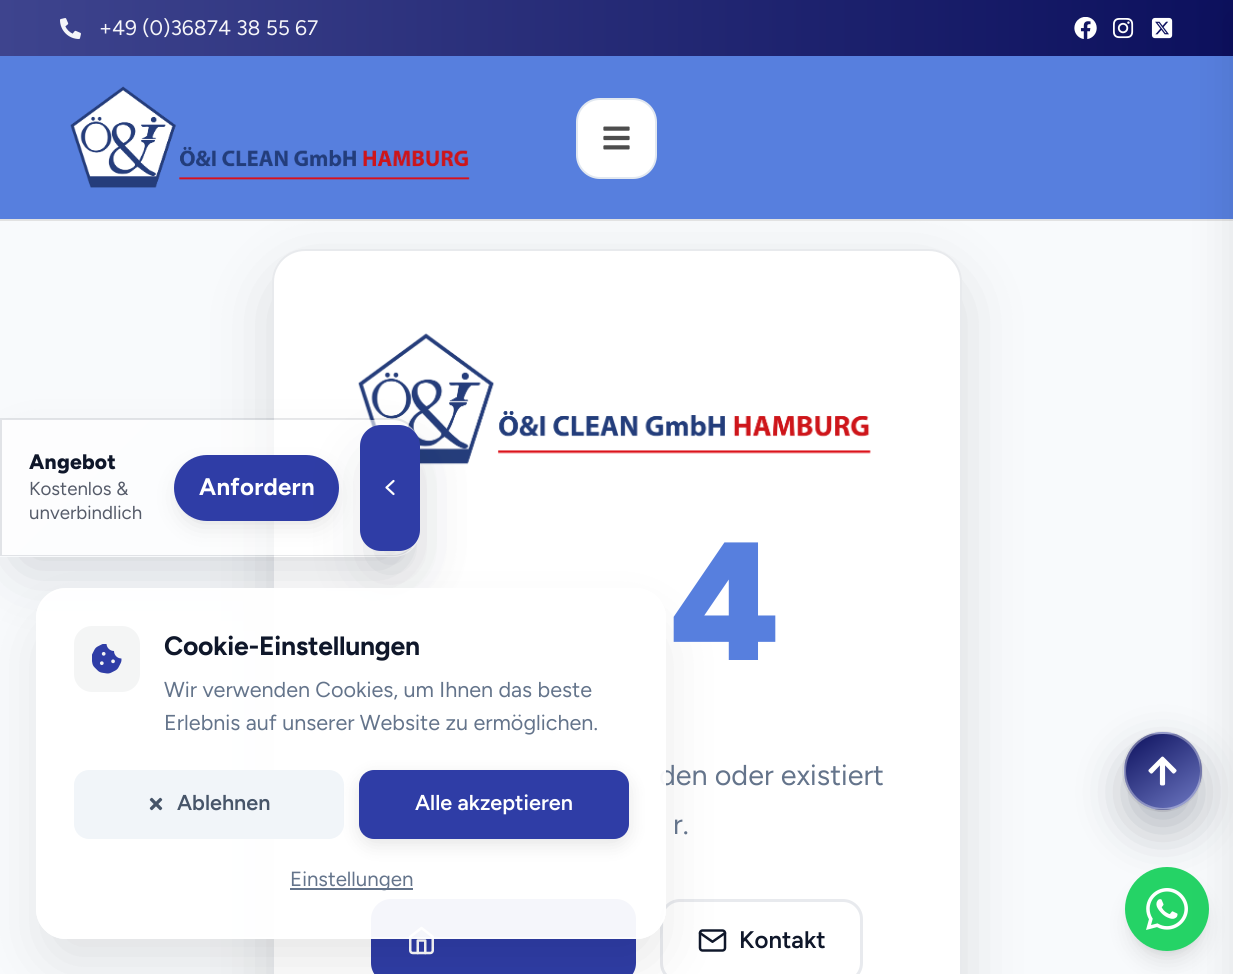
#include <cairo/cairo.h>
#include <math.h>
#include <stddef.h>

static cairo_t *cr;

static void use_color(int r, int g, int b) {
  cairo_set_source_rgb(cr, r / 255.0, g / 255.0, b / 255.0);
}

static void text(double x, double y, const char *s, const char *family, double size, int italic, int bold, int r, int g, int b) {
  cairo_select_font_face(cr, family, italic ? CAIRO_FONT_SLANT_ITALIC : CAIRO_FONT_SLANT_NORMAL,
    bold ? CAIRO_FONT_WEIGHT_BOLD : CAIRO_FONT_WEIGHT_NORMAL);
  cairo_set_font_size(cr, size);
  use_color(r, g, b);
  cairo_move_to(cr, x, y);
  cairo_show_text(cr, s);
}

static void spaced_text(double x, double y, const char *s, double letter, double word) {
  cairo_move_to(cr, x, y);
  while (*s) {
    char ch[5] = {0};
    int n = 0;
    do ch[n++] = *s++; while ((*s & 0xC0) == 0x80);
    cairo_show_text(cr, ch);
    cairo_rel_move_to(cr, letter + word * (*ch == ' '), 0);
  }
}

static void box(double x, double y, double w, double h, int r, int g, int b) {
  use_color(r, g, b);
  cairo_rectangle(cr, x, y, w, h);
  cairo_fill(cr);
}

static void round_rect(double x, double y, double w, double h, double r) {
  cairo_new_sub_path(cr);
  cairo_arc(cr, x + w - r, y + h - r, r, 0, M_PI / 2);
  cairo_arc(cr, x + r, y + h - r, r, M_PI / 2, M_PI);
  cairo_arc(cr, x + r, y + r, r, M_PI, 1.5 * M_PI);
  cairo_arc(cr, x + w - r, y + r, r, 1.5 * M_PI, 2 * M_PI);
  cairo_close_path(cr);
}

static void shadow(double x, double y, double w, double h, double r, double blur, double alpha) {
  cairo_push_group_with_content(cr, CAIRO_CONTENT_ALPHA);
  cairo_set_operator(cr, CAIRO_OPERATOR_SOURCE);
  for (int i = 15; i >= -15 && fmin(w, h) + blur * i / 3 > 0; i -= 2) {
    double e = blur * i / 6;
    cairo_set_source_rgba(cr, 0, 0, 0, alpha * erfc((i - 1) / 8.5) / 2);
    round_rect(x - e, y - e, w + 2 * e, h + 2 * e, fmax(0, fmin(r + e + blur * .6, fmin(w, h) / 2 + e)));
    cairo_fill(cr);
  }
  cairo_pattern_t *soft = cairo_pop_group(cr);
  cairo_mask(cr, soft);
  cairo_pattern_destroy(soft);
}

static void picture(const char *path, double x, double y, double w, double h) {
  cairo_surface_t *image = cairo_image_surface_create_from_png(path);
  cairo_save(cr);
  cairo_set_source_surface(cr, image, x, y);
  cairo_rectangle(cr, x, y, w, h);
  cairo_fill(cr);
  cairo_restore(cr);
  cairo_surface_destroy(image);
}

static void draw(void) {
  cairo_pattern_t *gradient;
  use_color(248, 250, 252);
  cairo_paint(cr);
  gradient = cairo_pattern_create_linear(0, 28, 1233, 28);
  cairo_pattern_add_color_stop_rgba(gradient, 0, 0.243, 0.267, 0.557, 1);
  cairo_pattern_add_color_stop_rgba(gradient, 1, 0.047, 0.063, 0.365, 1);
  cairo_set_source(cr, gradient);
  cairo_pattern_destroy(gradient);
  cairo_rectangle(cr, 0, 0, 1233, 56);
  cairo_fill(cr);
  picture("img_01.png", 60, 18, 21, 21);
  picture("img_02.png", 1074, 17, 23, 22);
  picture("img_03.png", 1113, 18, 21, 21);
  picture("img_04.png", 1151, 17, 22, 22);
  use_color(0, 0, 0);
  shadow(272, 272, 690, 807, 33, 34, 0.12);
  box(0, 56, 1233, 163, 87, 127, 222);
  box(0, 219, 1233, 2, 226, 226, 226);
  cairo_arc(cr, 1162.5, 771.5, 39.5, 0, 2 * M_PI);
  use_color(234, 236, 239);
  cairo_stroke(cr);
  use_color(15, 23, 42);
  shadow(1124, 753, 78, 78, 39, 22.5, 0.28);
  cairo_save(cr);
  round_rect(1124, 732, 78, 78, 39);
  cairo_clip(cr);
  gradient = cairo_pattern_create_linear(1133, 653, 1192, 739);
  cairo_pattern_add_color_stop_rgba(gradient, 0, 0.047, 0.063, 0.365, 1);
  cairo_pattern_add_color_stop_rgba(gradient, 1, 0.427, 0.467, 0.757, 1);
  cairo_set_source(cr, gradient);
  cairo_pattern_destroy(gradient);
  cairo_rectangle(cr, 1151, 732, 24, 2);
  cairo_fill(cr);
  gradient = cairo_pattern_create_linear(1133, 728, 1192, 814);
  cairo_pattern_add_color_stop_rgba(gradient, 0, 0.047, 0.063, 0.365, 1);
  cairo_pattern_add_color_stop_rgba(gradient, 1, 0.427, 0.467, 0.757, 1);
  cairo_set_source(cr, gradient);
  cairo_pattern_destroy(gradient);
  cairo_rectangle(cr, 1125, 734, 75, 75);
  cairo_fill(cr);
  gradient = cairo_pattern_create_linear(1208, 728, 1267, 814);
  cairo_pattern_add_color_stop_rgba(gradient, 0, 0.047, 0.063, 0.365, 1);
  cairo_pattern_add_color_stop_rgba(gradient, 1, 0.427, 0.467, 0.757, 1);
  cairo_set_source(cr, gradient);
  cairo_pattern_destroy(gradient);
  cairo_rectangle(cr, 1200, 759, 2, 24);
  cairo_fill(cr);
  gradient = cairo_pattern_create_linear(1133, 803, 1192, 889);
  cairo_pattern_add_color_stop_rgba(gradient, 0, 0.047, 0.063, 0.365, 1);
  cairo_pattern_add_color_stop_rgba(gradient, 1, 0.427, 0.467, 0.757, 1);
  cairo_set_source(cr, gradient);
  cairo_pattern_destroy(gradient);
  cairo_rectangle(cr, 1154, 809, 18, 1);
  cairo_fill(cr);
  gradient = cairo_pattern_create_linear(1058, 728, 1117, 814);
  cairo_pattern_add_color_stop_rgba(gradient, 0, 0.047, 0.063, 0.365, 1);
  cairo_pattern_add_color_stop_rgba(gradient, 1, 0.427, 0.467, 0.757, 1);
  cairo_set_source(cr, gradient);
  cairo_pattern_destroy(gradient);
  cairo_rectangle(cr, 1124, 762, 1, 18);
  cairo_fill(cr);
  cairo_restore(cr);
  cairo_arc(cr, 1163, 771, 38, 0, 2 * M_PI);
  cairo_set_source_rgba(cr, 1, 1, 1, 0.35);
  cairo_stroke(cr);
  picture("img_10.png", 1148, 756, 29, 30);
  use_color(0, 0, 0);
  shadow(1131, 879, 72, 72, 36, 4.5, 0.1);
  shadow(1130, 887, 75, 75, 37.5, 11, 0.1);
  use_color(37, 211, 102);
  cairo_arc(cr, 1167, 909, 42, 0, 2 * M_PI);
  cairo_fill(cr);
  picture("img_13.png", 1146, 888, 42, 42);
  use_color(0, 0, 0);
  shadow(1233, 15, 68, 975, 0, 22.5, 0.1);
  picture("img_05.png", 70, 86, 400, 102);
  use_color(255, 255, 255);
  round_rect(577, 99, 79, 79, 23);
  cairo_fill_preserve(cr);
  use_color(226, 232, 240);
  cairo_stroke(cr);
  picture("img_06.png", 603, 126, 27, 24);
  use_color(255, 255, 255);
  round_rect(272, 249, 690, 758, 33);
  cairo_fill(cr);
  round_rect(273, 250, 688, 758, 32);
  cairo_set_source_rgba(cr, 0.392, 0.455, 0.545, 0.15);
  cairo_stroke(cr);
  picture("img_07.png", 358, 333, 513, 132);
  use_color(47, 61, 166);
  round_rect(371, 899, 265, 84, 20);
  cairo_fill(cr);
  picture("img_08.png", 409, 926, 25, 29);
  round_rect(661.5, 900.5, 200, 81, 18.5);
  use_color(232, 234, 238);
  cairo_set_line_width(cr, 3);
  cairo_stroke(cr);
  picture("img_09.png", 698, 929, 29, 23);
  cairo_save(cr);
  cairo_set_fill_rule(cr, CAIRO_FILL_RULE_EVEN_ODD);
  cairo_new_path(cr);
  cairo_move_to(cr, 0, 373);
  cairo_line_to(cr, 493, 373);
  cairo_line_to(cr, 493, 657);
  cairo_line_to(cr, 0, 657);
  cairo_close_path(cr);
  cairo_move_to(cr, 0, 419);
  cairo_line_to(cr, 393, 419);
  cairo_curve_to(cr, 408, 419, 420, 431, 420, 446);
  cairo_line_to(cr, 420, 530);
  cairo_curve_to(cr, 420, 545, 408, 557, 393, 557);
  cairo_line_to(cr, 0, 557);
  cairo_close_path(cr);
  cairo_clip(cr);
  use_color(15, 23, 42);
  shadow(18, 464, 384, 102, 9, 30, 0.18);
  cairo_restore(cr);
  gradient = cairo_pattern_create_linear(72, 350, 348, 626);
  cairo_pattern_add_color_stop_rgba(gradient, 0, 1, 1, 1, 0.66);
  cairo_pattern_add_color_stop_rgba(gradient, 1, 1, 1, 1, 0.59);
  cairo_set_source(cr, gradient);
  cairo_pattern_destroy(gradient);
  cairo_new_path(cr);
  cairo_move_to(cr, 2, 420);
  cairo_line_to(cr, 393, 420);
  cairo_curve_to(cr, 407.5, 420, 419, 431.5, 419, 446);
  cairo_line_to(cr, 419, 529);
  cairo_curve_to(cr, 419, 543.5, 407.5, 555, 393, 555);
  cairo_line_to(cr, 2, 555);
  cairo_close_path(cr);
  cairo_fill(cr);
  cairo_set_source_rgba(cr, 0.059, 0.09, 0.165, 0.1);
  cairo_new_path(cr);
  cairo_move_to(cr, 2, 420);
  cairo_line_to(cr, 0, 418);
  cairo_line_to(cr, 398, 418);
  cairo_curve_to(cr, 404, 420, 408, 422, 412, 426);
  cairo_line_to(cr, 411, 428);
  cairo_curve_to(cr, 406, 423, 400, 420, 393, 420);
  cairo_close_path(cr);
  cairo_fill(cr);
  cairo_new_path(cr);
  cairo_move_to(cr, 412, 548);
  cairo_curve_to(cr, 407, 553, 400, 556, 393, 556);
  cairo_line_to(cr, 0, 556);
  cairo_line_to(cr, 2, 554);
  cairo_line_to(cr, 2, 555);
  cairo_line_to(cr, 393, 555);
  cairo_curve_to(cr, 400, 555, 406, 552, 411, 547);
  cairo_close_path(cr);
  cairo_fill(cr);
  cairo_new_path(cr);
  cairo_move_to(cr, 0, 418);
  cairo_line_to(cr, 0, 556);
  cairo_line_to(cr, 2, 554);
  cairo_line_to(cr, 2, 420);
  cairo_close_path(cr);
  cairo_fill(cr);
  use_color(0, 0, 0);
  shadow(186, 476, 141, 42, 21, 13.5, 0.18);
  use_color(47, 61, 166);
  round_rect(174, 455, 165, 66, 33);
  cairo_fill(cr);
  use_color(15, 23, 42);
  shadow(378, 470, 24, 90, 3, 30, 0.18);
  use_color(47, 61, 166);
  round_rect(360, 425, 60, 126, 21);
  cairo_fill(cr);
  cairo_new_path(cr);
  cairo_move_to(cr, 393.5, 481);
  cairo_line_to(cr, 386.5, 487.5);
  cairo_line_to(cr, 393.5, 494);
  use_color(255, 255, 255);
  cairo_set_line_width(cr, 2.2);
  cairo_set_line_cap(cr, CAIRO_LINE_CAP_ROUND);
  cairo_set_line_join(cr, CAIRO_LINE_JOIN_ROUND);
  cairo_stroke(cr);
  cairo_save(cr);
  cairo_set_fill_rule(cr, CAIRO_FILL_RULE_EVEN_ODD);
  cairo_new_path(cr);
  cairo_move_to(cr, 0, 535);
  cairo_line_to(cr, 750, 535);
  cairo_line_to(cr, 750, 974);
  cairo_line_to(cr, 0, 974);
  cairo_close_path(cr);
  cairo_move_to(cr, 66, 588);
  cairo_line_to(cr, 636, 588);
  cairo_curve_to(cr, 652.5, 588, 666, 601.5, 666, 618);
  cairo_line_to(cr, 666, 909);
  cairo_curve_to(cr, 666, 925.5, 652.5, 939, 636, 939);
  cairo_line_to(cr, 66, 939);
  cairo_curve_to(cr, 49.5, 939, 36, 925.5, 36, 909);
  cairo_line_to(cr, 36, 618);
  cairo_curve_to(cr, 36, 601.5, 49.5, 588, 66, 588);
  cairo_close_path(cr);
  cairo_clip(cr);
  use_color(0, 0, 0);
  shadow(44, 626, 615, 336, 23, 30, 0.1);
  cairo_restore(cr);
  text(99, 35, "+49 (0)36874 38 55 67", "Figtree", 21, 0, 0, 245, 245, 249);
  text(672, 660, "4", "Figtree Black", 168, 0, 0, 87, 127, 222);
  text(659, 785, "den oder existiert", "Figtree", 28.75, 0, 0, 100, 116, 139);
  text(673, 834, "r.", "Figtree", 28.75, 0, 0, 100, 116, 139);
  text(739, 948, "Kontakt", "Figtree SemiBold", 24, 0, 0, 15, 23, 42);
  cairo_select_font_face(cr, "Figtree ExtraBold", CAIRO_FONT_SLANT_NORMAL, CAIRO_FONT_WEIGHT_NORMAL);
  cairo_set_font_size(cr, 21);
  spaced_text(29, 469, "Angebot", 0.25, 0);
  text(29, 495, "Kostenlos &", "Figtree", 18.75, 0, 0, 86, 92, 106);
  text(29, 519, "unverbindlich", "Figtree", 18.75, 0, 0, 86, 92, 106);
  cairo_select_font_face(cr, "Figtree", CAIRO_FONT_SLANT_NORMAL, CAIRO_FONT_WEIGHT_BOLD);
  cairo_set_font_size(cr, 24);
  use_color(255, 255, 255);
  spaced_text(199, 495, "Anfordern", 0.25, 0);
  cairo_set_source_rgba(cr, 1, 1, 1, 0.95);
  round_rect(36, 588, 630, 351, 30);
  cairo_fill(cr);
  round_rect(37, 589, 628, 349, 29);
  cairo_set_source_rgba(cr, 1, 1, 1, 0.6);
  cairo_set_line_width(cr, 2);
  cairo_set_line_cap(cr, CAIRO_LINE_CAP_BUTT);
  cairo_set_line_join(cr, CAIRO_LINE_JOIN_MITER);
  cairo_stroke(cr);
  use_color(244, 245, 245);
  round_rect(74, 626, 66, 66, 18);
  cairo_fill(cr);
  picture("img_11.png", 92, 644, 30, 30);
  cairo_set_font_size(cr, 26.5);
  use_color(15, 23, 42);
  spaced_text(164, 655, "Cookie-Einstellungen", -0.25, 0);
  text(164, 697, "Wir verwenden Cookies, um Ihnen das beste", "Figtree", 21.6, 0, 0, 100, 116, 139);
  text(164, 730, "Erlebnis auf unserer Website zu ermöglichen.", "Figtree", 21.6, 0, 0, 100, 116, 139);
  use_color(241, 245, 249);
  round_rect(74, 770, 270, 69, 15);
  cairo_fill(cr);
  picture("img_12.png", 149, 797, 14, 14);
  text(177, 810, "Ablehnen", "Figtree SemiBold", 21.6, 0, 0, 71, 85, 105);
  use_color(0, 0, 0);
  shadow(359, 776, 270, 69, 15, 9, 0.1);
  use_color(47, 61, 166);
  round_rect(359, 770, 270, 69, 15);
  cairo_fill(cr);
  text(415, 810, "Alle akzeptieren", "Figtree SemiBold", 21.6, 0, 0, 255, 255, 255);
  box(290, 888, 123, 2, 100, 116, 139);
  text(290, 886, "Einstellungen", "Figtree", 20.5, 0, 0, 100, 116, 139);
}

int main(void) {
  cairo_surface_t *surface = cairo_image_surface_create(CAIRO_FORMAT_RGB24, 1233, 974);
  cr = cairo_create(surface);
  cairo_font_options_t *options = cairo_font_options_create();
  cairo_font_options_set_hint_metrics(options, CAIRO_HINT_METRICS_OFF);
  cairo_font_options_set_hint_style(options, CAIRO_HINT_STYLE_NONE);
  cairo_set_font_options(cr, options);
  cairo_set_miter_limit(cr, 4);
  draw();
  cairo_surface_write_to_png(surface, "out.png");
  cairo_font_options_destroy(options);
  cairo_destroy(cr);
  cairo_surface_destroy(surface);
  return 0;
}
